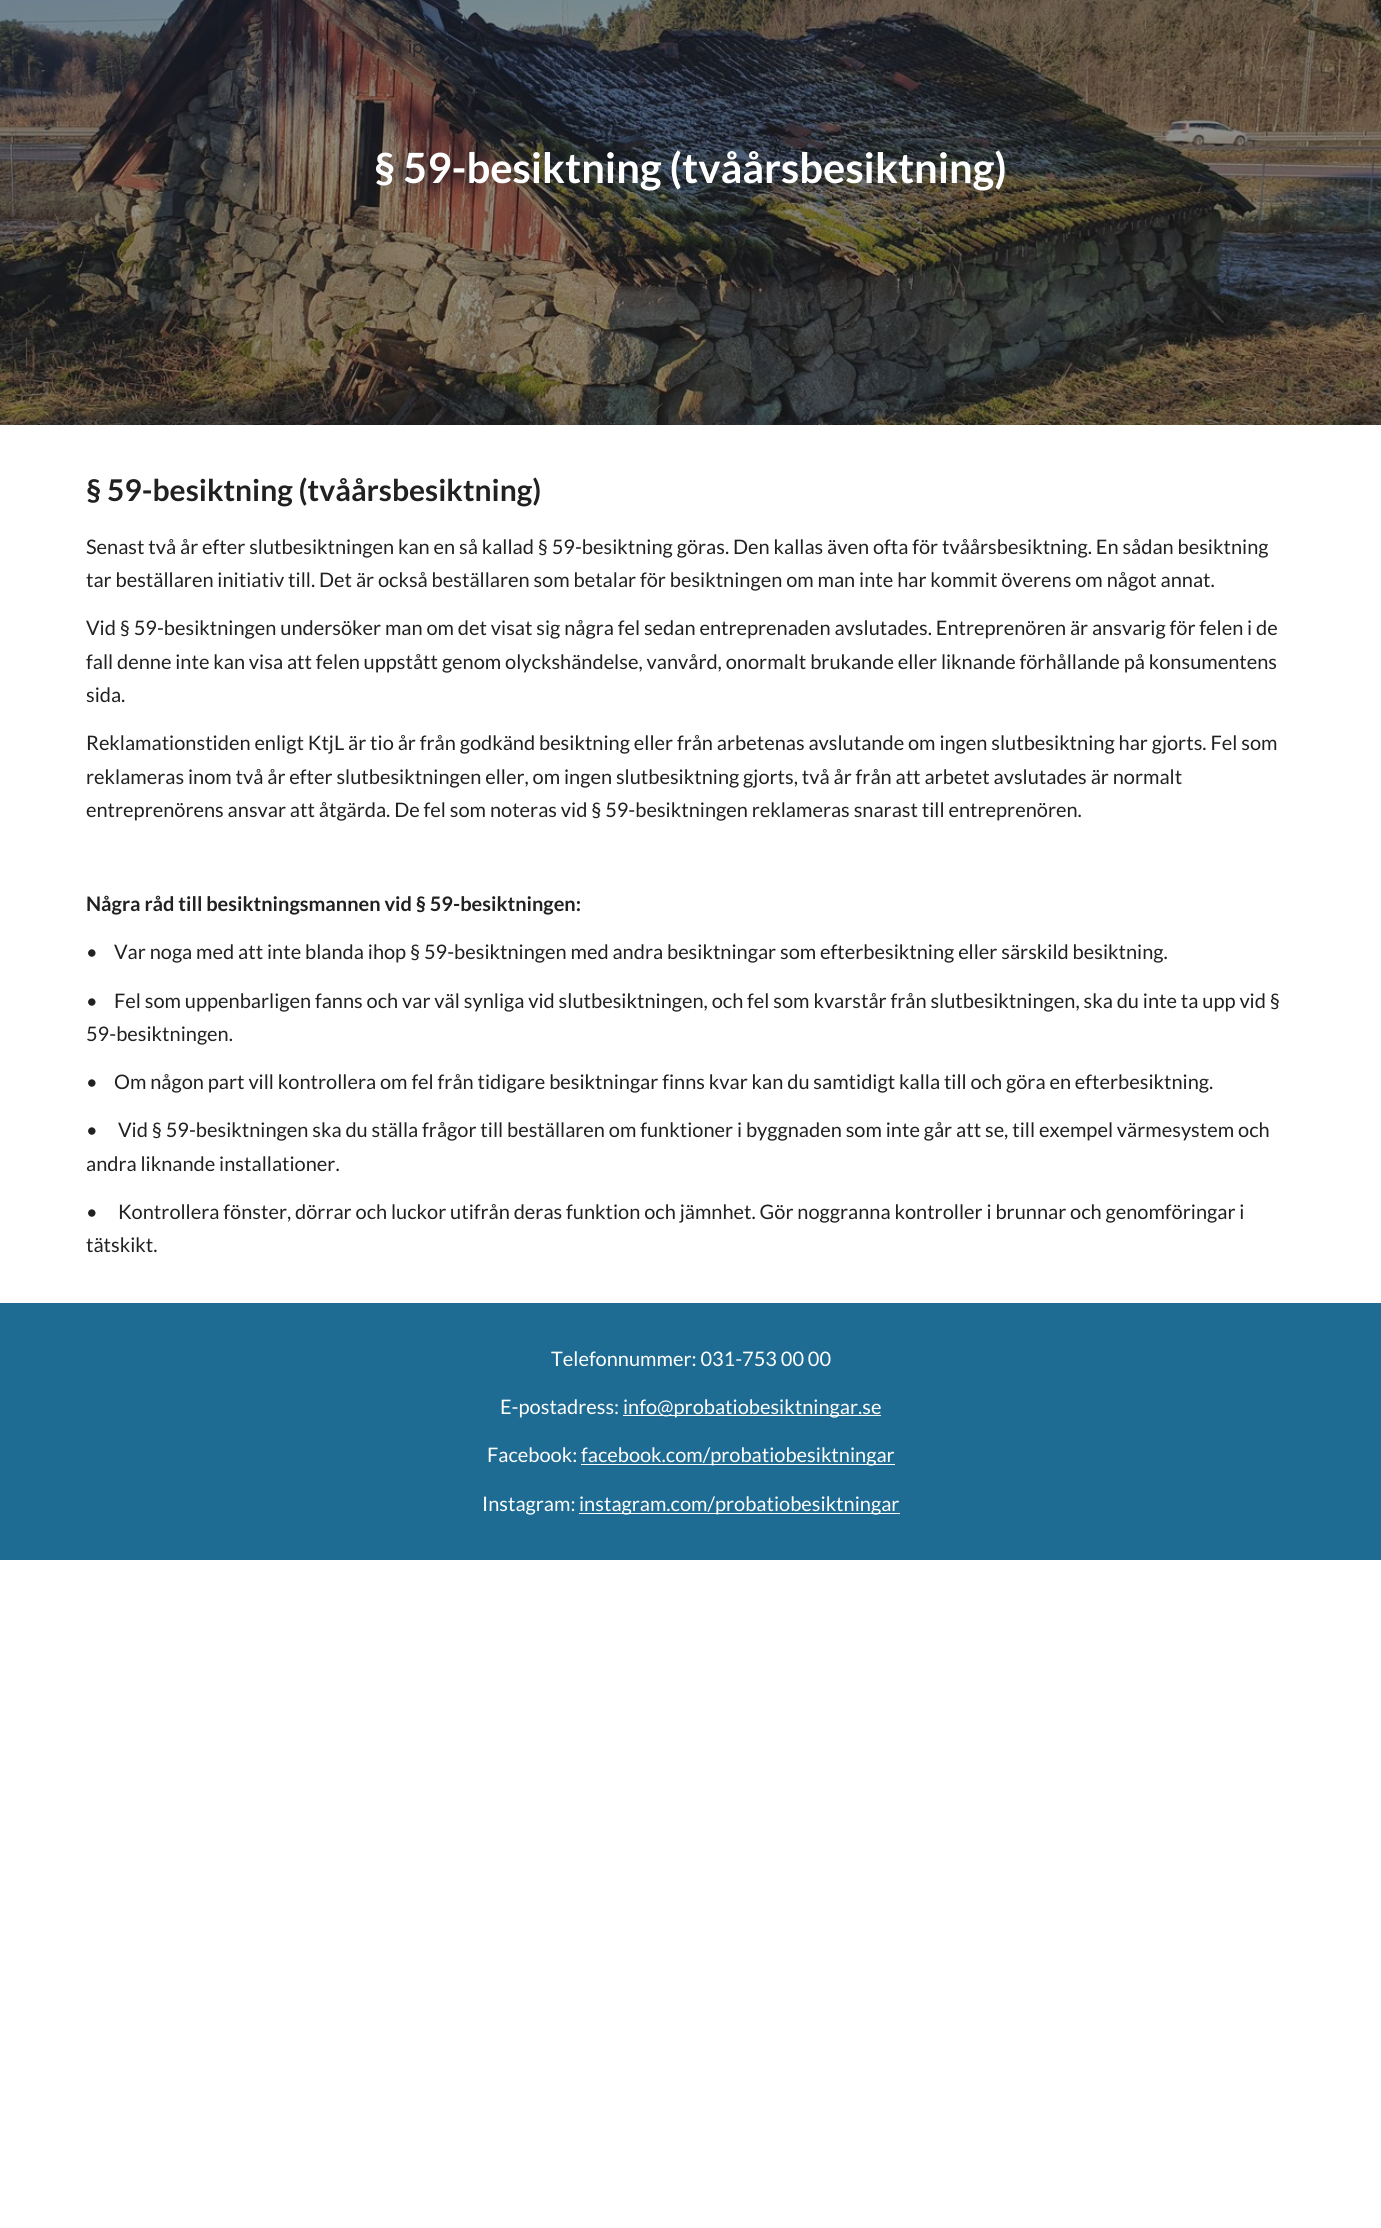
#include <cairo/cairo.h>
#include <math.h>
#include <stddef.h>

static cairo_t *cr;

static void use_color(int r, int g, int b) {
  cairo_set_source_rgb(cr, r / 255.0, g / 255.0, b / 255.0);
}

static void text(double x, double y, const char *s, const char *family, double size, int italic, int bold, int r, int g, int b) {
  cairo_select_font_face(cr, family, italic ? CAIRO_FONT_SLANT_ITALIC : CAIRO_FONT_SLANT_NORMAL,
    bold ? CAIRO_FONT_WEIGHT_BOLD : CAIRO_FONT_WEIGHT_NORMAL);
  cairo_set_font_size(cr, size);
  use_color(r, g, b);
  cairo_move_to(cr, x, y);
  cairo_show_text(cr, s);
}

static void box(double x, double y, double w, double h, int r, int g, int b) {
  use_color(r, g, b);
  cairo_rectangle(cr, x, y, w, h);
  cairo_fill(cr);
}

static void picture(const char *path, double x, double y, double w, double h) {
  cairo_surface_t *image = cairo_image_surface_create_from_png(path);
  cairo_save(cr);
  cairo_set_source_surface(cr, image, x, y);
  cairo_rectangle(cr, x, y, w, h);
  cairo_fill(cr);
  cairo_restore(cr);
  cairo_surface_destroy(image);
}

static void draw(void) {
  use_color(255, 255, 255);
  cairo_paint(cr);
  picture("img_01.png", 0, 0, 1381, 425);
  box(0, 1303, 1381, 257, 30, 108, 147);
  box(623, 1415, 258, 1, 255, 255, 255);
  box(581, 1464, 314, 1, 255, 255, 255);
  box(579, 1513, 321, 1, 255, 255, 255);
  text(408, 53, "ip", "Google Sans Medium", 18, 0, 0, 39, 41, 48);
  text(374, 183, "§ 59-besiktning (tvåårsbesiktning)", "Lato", 41.7, 0, 1, 255, 255, 255);
  text(86, 501, "§ 59-besiktning (tvåårsbesiktning)", "Lato", 30, 0, 1, 33, 33, 33);
  text(86, 554, "Senast två år efter slutbesiktningen kan en så kallad § 59-besiktning göras. Den kallas även ofta för tvåårsbesiktning. En sådan besiktning", "Lato", 20, 0, 0, 33, 33, 33);
  text(86, 587, "tar beställaren initiativ till. Det är också beställaren som betalar för besiktningen om man inte har kommit överens om något annat.", "Lato", 20, 0, 0, 33, 33, 33);
  text(86, 635, "Vid § 59-besiktningen undersöker man om det visat sig några fel sedan entreprenaden avslutades. Entreprenören är ansvarig för felen i de", "Lato", 20, 0, 0, 33, 33, 33);
  text(86, 669, "fall denne inte kan visa att felen uppstått genom olyckshändelse, vanvård, onormalt brukande eller liknande förhållande på konsumentens", "Lato", 20, 0, 0, 33, 33, 33);
  text(86, 702, "sida.", "Lato", 20, 0, 0, 33, 33, 33);
  text(86, 750, "Reklamationstiden enligt KtjL är tio år från godkänd besiktning eller från arbetenas avslutande om ingen slutbesiktning har gjorts. Fel som", "Lato", 20, 0, 0, 33, 33, 33);
  text(86, 784, "reklameras inom två år efter slutbesiktningen eller, om ingen slutbesiktning gjorts, två år från att arbetet avslutades är normalt", "Lato", 20, 0, 0, 33, 33, 33);
  text(86, 817, "entreprenörens ansvar att åtgärda. De fel som noteras vid § 59-besiktningen reklameras snarast till entreprenören.", "Lato", 20, 0, 0, 33, 33, 33);
  text(86, 911, "Några råd till besiktningsmannen vid § 59-besiktningen:", "Lato", 20, 0, 1, 33, 33, 33);
  text(86, 959, "•", "Lato", 20, 0, 0, 33, 33, 33);
  text(114, 959, "Var noga med att inte blanda ihop § 59-besiktningen med andra besiktningar som efterbesiktning eller särskild besiktning.", "Lato", 20, 0, 0, 33, 33, 33);
  text(86, 1008, "•", "Lato", 20, 0, 0, 33, 33, 33);
  text(114, 1008, "Fel som uppenbarligen fanns och var väl synliga vid slutbesiktningen, och fel som kvarstår från slutbesiktningen, ska du inte ta upp vid §", "Lato", 20, 0, 0, 33, 33, 33);
  text(86, 1041, "59-besiktningen.", "Lato", 20, 0, 0, 33, 33, 33);
  text(86, 1089, "•", "Lato", 20, 0, 0, 33, 33, 33);
  text(114, 1089, "Om någon part vill kontrollera om fel från tidigare besiktningar finns kvar kan du samtidigt kalla till och göra en efterbesiktning.", "Lato", 20, 0, 0, 33, 33, 33);
  text(86, 1137, "•", "Lato", 20, 0, 0, 33, 33, 33);
  text(118, 1137, "Vid § 59-besiktningen ska du ställa frågor till beställaren om funktioner i byggnaden som inte går att se, till exempel värmesystem och", "Lato", 20, 0, 0, 33, 33, 33);
  text(86, 1171, "andra liknande installationer.", "Lato", 20, 0, 0, 33, 33, 33);
  text(86, 1219, "•", "Lato", 20, 0, 0, 33, 33, 33);
  text(118, 1219, "Kontrollera fönster, dörrar och luckor utifrån deras funktion och jämnhet. Gör noggranna kontroller i brunnar och genomföringar i", "Lato", 20, 0, 0, 33, 33, 33);
  text(86, 1252, "tätskikt.", "Lato", 20, 0, 0, 33, 33, 33);
  text(551, 1366, "Telefonnummer: 031-753 00 00", "Lato", 20, 0, 0, 255, 255, 255);
  text(500, 1414, "E-postadress:", "Lato", 20, 0, 0, 255, 255, 255);
  text(623, 1414, "info@probatiobesiktningar.se", "Lato", 20, 0, 0, 255, 255, 255);
  text(487, 1462, "Facebook:", "Lato", 20, 0, 0, 255, 255, 255);
  text(581, 1462, "facebook.com/probatiobesiktningar", "Lato", 20, 0, 0, 255, 255, 255);
  text(482, 1511, "Instagram:", "Lato", 20, 0, 0, 255, 255, 255);
  text(579, 1511, "instagram.com/probatiobesiktningar", "Lato", 20, 0, 0, 255, 255, 255);
}

int main(void) {
  cairo_surface_t *surface = cairo_image_surface_create(CAIRO_FORMAT_RGB24, 1381, 2228);
  cr = cairo_create(surface);
  cairo_font_options_t *options = cairo_font_options_create();
  cairo_font_options_set_hint_metrics(options, CAIRO_HINT_METRICS_OFF);
  cairo_font_options_set_hint_style(options, CAIRO_HINT_STYLE_NONE);
  cairo_set_font_options(cr, options);
  cairo_set_miter_limit(cr, 4);
  draw();
  cairo_surface_write_to_png(surface, "out.png");
  cairo_font_options_destroy(options);
  cairo_destroy(cr);
  cairo_surface_destroy(surface);
  return 0;
}
